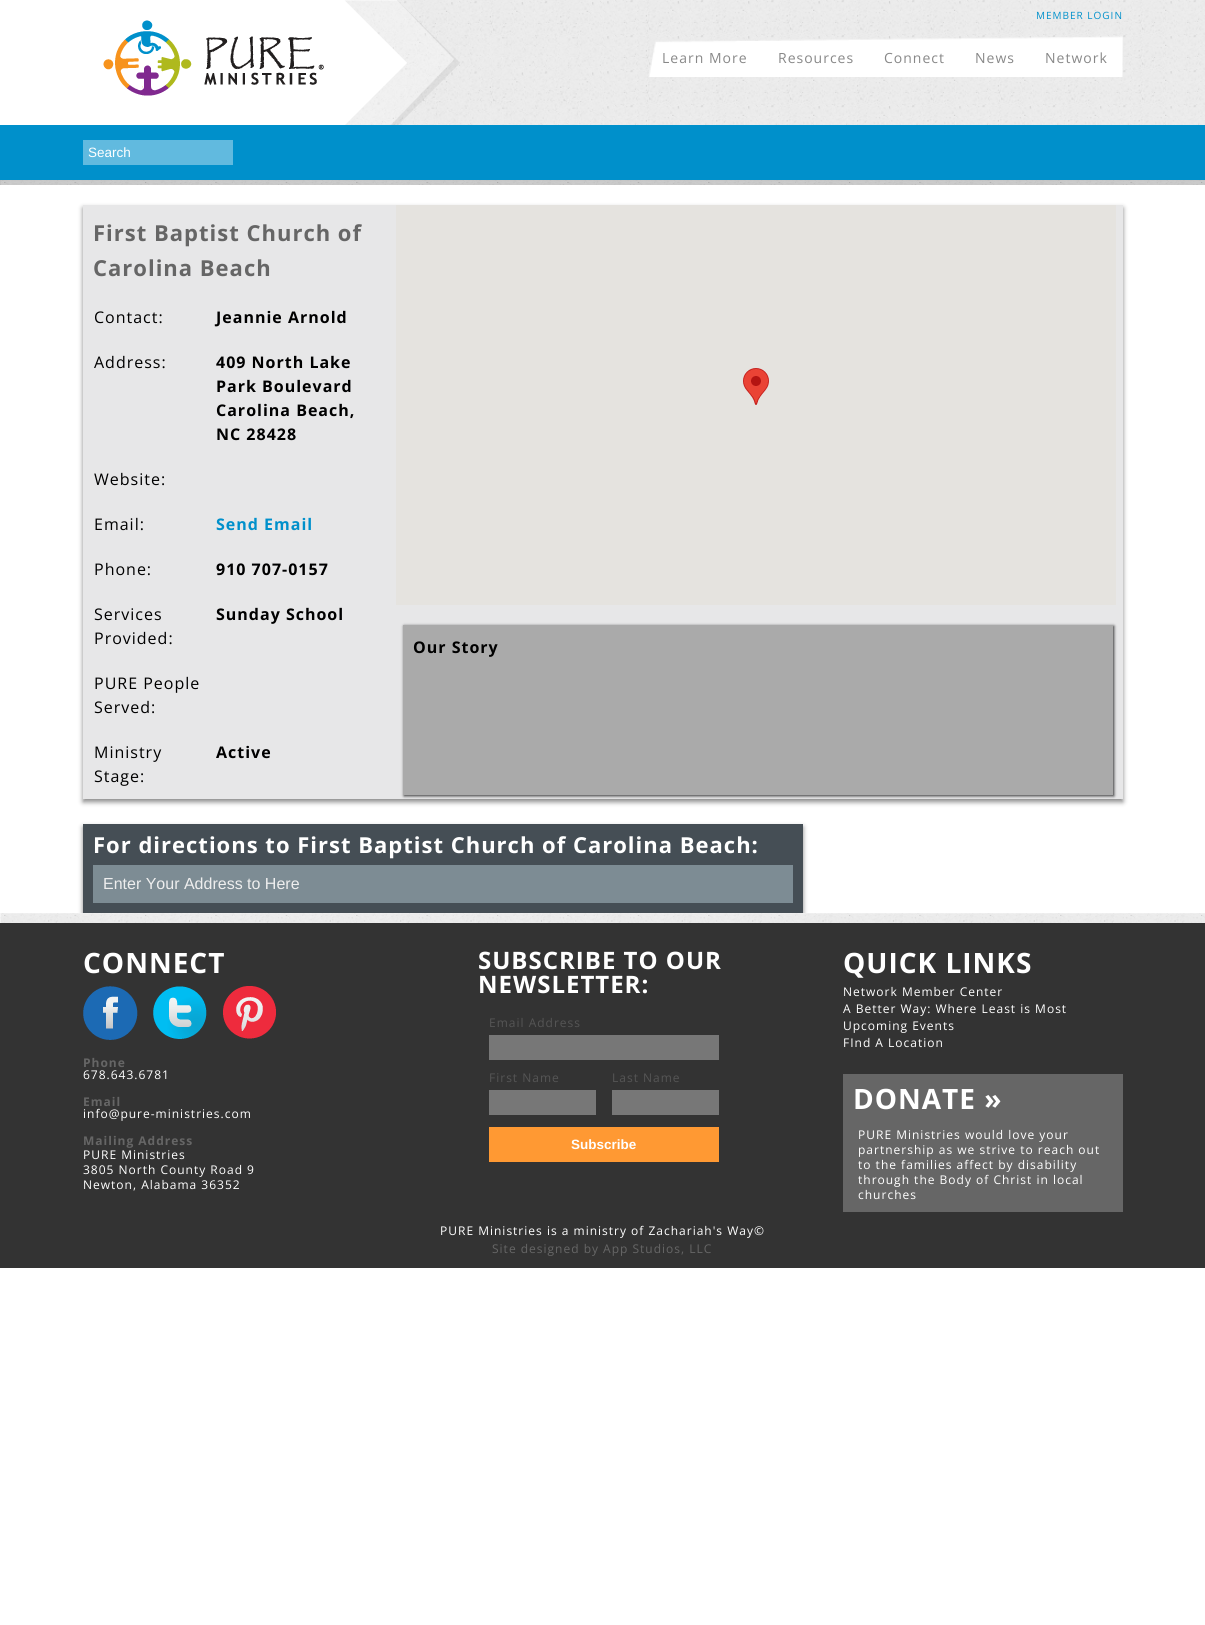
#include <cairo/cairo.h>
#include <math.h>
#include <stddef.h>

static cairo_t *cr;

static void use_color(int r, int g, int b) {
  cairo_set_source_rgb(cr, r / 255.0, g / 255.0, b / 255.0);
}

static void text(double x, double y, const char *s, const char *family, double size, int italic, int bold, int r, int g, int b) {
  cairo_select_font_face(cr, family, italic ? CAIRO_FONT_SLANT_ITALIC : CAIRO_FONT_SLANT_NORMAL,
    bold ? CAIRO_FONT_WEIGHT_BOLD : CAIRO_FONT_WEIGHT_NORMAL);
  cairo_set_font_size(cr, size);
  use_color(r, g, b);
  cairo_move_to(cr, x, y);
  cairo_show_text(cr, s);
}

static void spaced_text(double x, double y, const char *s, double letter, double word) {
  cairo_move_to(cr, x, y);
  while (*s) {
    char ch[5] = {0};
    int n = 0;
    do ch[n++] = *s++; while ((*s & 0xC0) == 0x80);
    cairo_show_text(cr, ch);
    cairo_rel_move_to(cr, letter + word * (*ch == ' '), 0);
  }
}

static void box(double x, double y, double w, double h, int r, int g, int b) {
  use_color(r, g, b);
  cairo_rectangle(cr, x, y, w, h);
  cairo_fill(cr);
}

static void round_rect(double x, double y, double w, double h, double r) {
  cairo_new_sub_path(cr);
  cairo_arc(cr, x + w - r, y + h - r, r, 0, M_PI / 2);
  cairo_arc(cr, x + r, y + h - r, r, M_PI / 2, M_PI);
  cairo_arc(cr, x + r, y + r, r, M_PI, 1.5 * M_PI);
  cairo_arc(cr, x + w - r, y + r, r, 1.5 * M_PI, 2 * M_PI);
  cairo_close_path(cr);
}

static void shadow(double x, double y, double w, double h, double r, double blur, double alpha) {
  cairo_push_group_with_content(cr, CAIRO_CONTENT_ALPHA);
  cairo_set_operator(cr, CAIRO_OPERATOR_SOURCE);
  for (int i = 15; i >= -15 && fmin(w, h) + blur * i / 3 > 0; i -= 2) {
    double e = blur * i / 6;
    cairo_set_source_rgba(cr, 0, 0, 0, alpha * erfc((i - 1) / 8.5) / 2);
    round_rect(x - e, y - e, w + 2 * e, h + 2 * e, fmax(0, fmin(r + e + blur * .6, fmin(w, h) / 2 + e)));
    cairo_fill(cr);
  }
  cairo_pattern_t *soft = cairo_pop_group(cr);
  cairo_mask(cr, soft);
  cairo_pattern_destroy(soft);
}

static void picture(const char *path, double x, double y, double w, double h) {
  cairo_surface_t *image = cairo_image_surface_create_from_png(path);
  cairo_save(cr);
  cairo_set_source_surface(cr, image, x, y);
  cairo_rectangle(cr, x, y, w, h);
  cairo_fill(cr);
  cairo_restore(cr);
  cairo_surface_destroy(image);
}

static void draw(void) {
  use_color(255, 255, 255);
  cairo_paint(cr);
  picture("img_01.png", 603, 0, 602, 125);
  picture("img_02.png", 103, 0, 500, 125);
  picture("img_03.png", 648, 36, 475, 41);
  box(0, 125, 1205, 55, 0, 144, 203);
  box(83, 140, 150, 25, 97, 186, 223);
  box(0, 180, 1205, 5, 187, 187, 187);
  picture("img_04.png", 0, 180, 1205, 5);
  use_color(136, 136, 136);
  shadow(83, 208, 1040, 594, 0, 2.5, 1);
  box(83, 205, 1040, 594, 231, 231, 232);
  box(396, 205, 720, 400, 229, 227, 223);
  picture("img_05.png", 743, 368, 26, 37);
  use_color(51, 51, 51);
  shadow(404, 626, 710, 170, 0, 1.5, 1);
  box(403, 625, 710, 170, 170, 170, 170);
  use_color(136, 136, 136);
  shadow(83, 827, 720, 89, 0, 2.5, 1);
  box(83, 824, 720, 89, 69, 78, 85);
  box(93, 865, 700, 38, 125, 140, 148);
  box(0, 923, 1205, 345, 51, 51, 51);
  box(78, 913, 730, 8, 255, 255, 255);
  picture("img_06.png", 0, 913, 1205, 10);
  picture("img_07.png", 83, 986, 55, 54);
  picture("img_08.png", 153, 986, 54, 53);
  picture("img_09.png", 223, 986, 53, 53);
  box(489, 1035, 230, 25, 119, 119, 119);
  box(489, 1090, 107, 25, 119, 119, 119);
  box(612, 1090, 107, 25, 119, 119, 119);
  box(489, 1127, 230, 35, 255, 153, 51);
  box(843, 1074, 280, 138, 102, 102, 102);
  cairo_select_font_face(cr, "Open Sans", CAIRO_FONT_SLANT_NORMAL, CAIRO_FONT_WEIGHT_NORMAL);
  cairo_set_font_size(cr, 10);
  use_color(0, 144, 203);
  spaced_text(1036, 19, "MEMBER LOGIN", 1, 0);
  cairo_set_font_size(cr, 14);
  use_color(136, 136, 136);
  spaced_text(662, 63, "Learn More", 1, 0);
  spaced_text(778, 63, "Resources", 1, 0);
  spaced_text(884, 63, "Connect", 1, 0);
  spaced_text(975, 63, "News", 1, 0);
  spaced_text(1045, 63, "Network", 1, 0);
  text(88, 157, "Search", "Liberation Sans", 13.5, 0, 0, 255, 255, 255);
  cairo_select_font_face(cr, "Open Sans", CAIRO_FONT_SLANT_NORMAL, CAIRO_FONT_WEIGHT_BOLD);
  cairo_set_font_size(cr, 22);
  use_color(102, 102, 102);
  spaced_text(93, 241, "First Baptist Church of", 1, 0);
  spaced_text(93, 276, "Carolina Beach", 1, 0);
  cairo_select_font_face(cr, "Open Sans", CAIRO_FONT_SLANT_NORMAL, CAIRO_FONT_WEIGHT_NORMAL);
  cairo_set_font_size(cr, 16);
  use_color(0, 0, 0);
  spaced_text(94, 323, "Contact:", 1, 0);
  cairo_select_font_face(cr, "Open Sans", CAIRO_FONT_SLANT_NORMAL, CAIRO_FONT_WEIGHT_BOLD);
  spaced_text(216, 323, "Jeannie Arnold", 1, 0);
  cairo_select_font_face(cr, "Open Sans", CAIRO_FONT_SLANT_NORMAL, CAIRO_FONT_WEIGHT_NORMAL);
  spaced_text(94, 368, "Address:", 1, 0);
  cairo_select_font_face(cr, "Open Sans", CAIRO_FONT_SLANT_NORMAL, CAIRO_FONT_WEIGHT_BOLD);
  spaced_text(216, 368, "409 North Lake", 1, 0);
  spaced_text(216, 392, "Park Boulevard", 1, 0);
  spaced_text(216, 416, "Carolina Beach,", 1, 0);
  spaced_text(216, 440, "NC 28428", 1, 0);
  cairo_select_font_face(cr, "Open Sans", CAIRO_FONT_SLANT_NORMAL, CAIRO_FONT_WEIGHT_NORMAL);
  spaced_text(94, 485, "Website:", 1, 0);
  spaced_text(94, 530, "Email:", 1, 0);
  cairo_select_font_face(cr, "Open Sans", CAIRO_FONT_SLANT_NORMAL, CAIRO_FONT_WEIGHT_BOLD);
  use_color(0, 144, 203);
  spaced_text(216, 530, "Send Email", 1, 0);
  cairo_select_font_face(cr, "Open Sans", CAIRO_FONT_SLANT_NORMAL, CAIRO_FONT_WEIGHT_NORMAL);
  use_color(0, 0, 0);
  spaced_text(94, 575, "Phone:", 1, 0);
  cairo_select_font_face(cr, "Open Sans", CAIRO_FONT_SLANT_NORMAL, CAIRO_FONT_WEIGHT_BOLD);
  spaced_text(216, 575, "910 707-0157", 1, 0);
  cairo_select_font_face(cr, "Open Sans", CAIRO_FONT_SLANT_NORMAL, CAIRO_FONT_WEIGHT_NORMAL);
  spaced_text(94, 620, "Services", 1, 0);
  spaced_text(94, 644, "Provided:", 1, 0);
  cairo_select_font_face(cr, "Open Sans", CAIRO_FONT_SLANT_NORMAL, CAIRO_FONT_WEIGHT_BOLD);
  spaced_text(216, 620, "Sunday School", 1, 0);
  cairo_select_font_face(cr, "Open Sans", CAIRO_FONT_SLANT_NORMAL, CAIRO_FONT_WEIGHT_NORMAL);
  spaced_text(94, 689, "PURE People", 1, 0);
  spaced_text(94, 713, "Served:", 1, 0);
  spaced_text(94, 758, "Ministry", 1, 0);
  spaced_text(94, 782, "Stage:", 1, 0);
  cairo_select_font_face(cr, "Open Sans", CAIRO_FONT_SLANT_NORMAL, CAIRO_FONT_WEIGHT_BOLD);
  spaced_text(216, 758, "Active", 1, 0);
  spaced_text(413, 653, "Our Story", 1, 0);
  cairo_set_font_size(cr, 22);
  use_color(255, 255, 255);
  spaced_text(93, 853, "For directions to First Baptist Church of Carolina Beach:", 1, 0);
  text(103, 889, "Enter Your Address to Here", "Liberation Sans", 16, 0, 0, 238, 238, 238);
  cairo_select_font_face(cr, "Open Sans", CAIRO_FONT_SLANT_NORMAL, CAIRO_FONT_WEIGHT_BOLD);
  cairo_set_font_size(cr, 28);
  use_color(255, 255, 255);
  spaced_text(83, 973, "CONNECT", 1, 0);
  cairo_set_font_size(cr, 12);
  use_color(102, 102, 102);
  spaced_text(83, 1067, "Phone", 1, 0);
  cairo_select_font_face(cr, "Open Sans", CAIRO_FONT_SLANT_NORMAL, CAIRO_FONT_WEIGHT_NORMAL);
  use_color(255, 255, 255);
  spaced_text(83, 1079, "678.643.6781", 1, 0);
  cairo_select_font_face(cr, "Open Sans", CAIRO_FONT_SLANT_NORMAL, CAIRO_FONT_WEIGHT_BOLD);
  use_color(102, 102, 102);
  spaced_text(83, 1106, "Email", 1, 0);
  cairo_select_font_face(cr, "Open Sans", CAIRO_FONT_SLANT_NORMAL, CAIRO_FONT_WEIGHT_NORMAL);
  use_color(255, 255, 255);
  spaced_text(83, 1118, "info@pure-ministries.com", 1, 0);
  cairo_select_font_face(cr, "Open Sans", CAIRO_FONT_SLANT_NORMAL, CAIRO_FONT_WEIGHT_BOLD);
  use_color(102, 102, 102);
  spaced_text(83, 1145, "Mailing Address", 1, 0);
  cairo_select_font_face(cr, "Open Sans", CAIRO_FONT_SLANT_NORMAL, CAIRO_FONT_WEIGHT_NORMAL);
  use_color(255, 255, 255);
  spaced_text(83, 1159, "PURE Ministries", 1, 0);
  spaced_text(83, 1174, "3805 North County Road 9", 1, 0);
  spaced_text(83, 1189, "Newton, Alabama 36352", 1, 0);
  cairo_select_font_face(cr, "Open Sans", CAIRO_FONT_SLANT_NORMAL, CAIRO_FONT_WEIGHT_BOLD);
  cairo_set_font_size(cr, 24);
  spaced_text(478, 969, "SUBSCRIBE TO OUR", 1, 0);
  spaced_text(478, 993, "NEWSLETTER:", 1, 0);
  cairo_select_font_face(cr, "Open Sans", CAIRO_FONT_SLANT_NORMAL, CAIRO_FONT_WEIGHT_NORMAL);
  cairo_set_font_size(cr, 12);
  use_color(85, 85, 85);
  spaced_text(489, 1027, "Email Address", 1, 0);
  spaced_text(489, 1082, "First Name", 1, 0);
  spaced_text(612, 1082, "Last Name", 1, 0);
  text(571, 1149, "Subscribe", "Liberation Sans", 13.5, 0, 1, 255, 255, 255);
  cairo_select_font_face(cr, "Open Sans", CAIRO_FONT_SLANT_NORMAL, CAIRO_FONT_WEIGHT_BOLD);
  cairo_set_font_size(cr, 28);
  spaced_text(843, 973, "QUICK LINKS", 1, 0);
  cairo_select_font_face(cr, "Open Sans", CAIRO_FONT_SLANT_NORMAL, CAIRO_FONT_WEIGHT_NORMAL);
  cairo_set_font_size(cr, 12);
  spaced_text(843, 996, "Network Member Center", 1, 0);
  spaced_text(843, 1013, "A Better Way: Where Least is Most", 1, 0);
  spaced_text(843, 1030, "Upcoming Events", 1, 0);
  spaced_text(843, 1047, "FInd A Location", 1, 0);
  cairo_select_font_face(cr, "Open Sans", CAIRO_FONT_SLANT_NORMAL, CAIRO_FONT_WEIGHT_BOLD);
  cairo_set_font_size(cr, 28);
  spaced_text(853, 1109, "DONATE »", 1, 0);
  cairo_select_font_face(cr, "Open Sans", CAIRO_FONT_SLANT_NORMAL, CAIRO_FONT_WEIGHT_NORMAL);
  cairo_set_font_size(cr, 12);
  spaced_text(858, 1139, "PURE Ministries would love your", 1, 0);
  spaced_text(858, 1154, "partnership as we strive to reach out", 1, 0);
  spaced_text(858, 1169, "to the families affect by disability", 1, 0);
  spaced_text(858, 1184, "through the Body of Christ in local", 1, 0);
  spaced_text(858, 1199, "churches", 1, 0);
  spaced_text(440, 1235, "PURE Ministries is a ministry of Zachariah's Way©", 1, 0);
  use_color(102, 102, 102);
  spaced_text(492, 1253, "Site designed by App Studios, LLC", 1, 0);
}

int main(void) {
  cairo_surface_t *surface = cairo_image_surface_create(CAIRO_FORMAT_RGB24, 1205, 1625);
  cr = cairo_create(surface);
  cairo_font_options_t *options = cairo_font_options_create();
  cairo_font_options_set_hint_metrics(options, CAIRO_HINT_METRICS_OFF);
  cairo_font_options_set_hint_style(options, CAIRO_HINT_STYLE_NONE);
  cairo_set_font_options(cr, options);
  cairo_set_miter_limit(cr, 4);
  draw();
  cairo_surface_write_to_png(surface, "out.png");
  cairo_font_options_destroy(options);
  cairo_destroy(cr);
  cairo_surface_destroy(surface);
  return 0;
}
